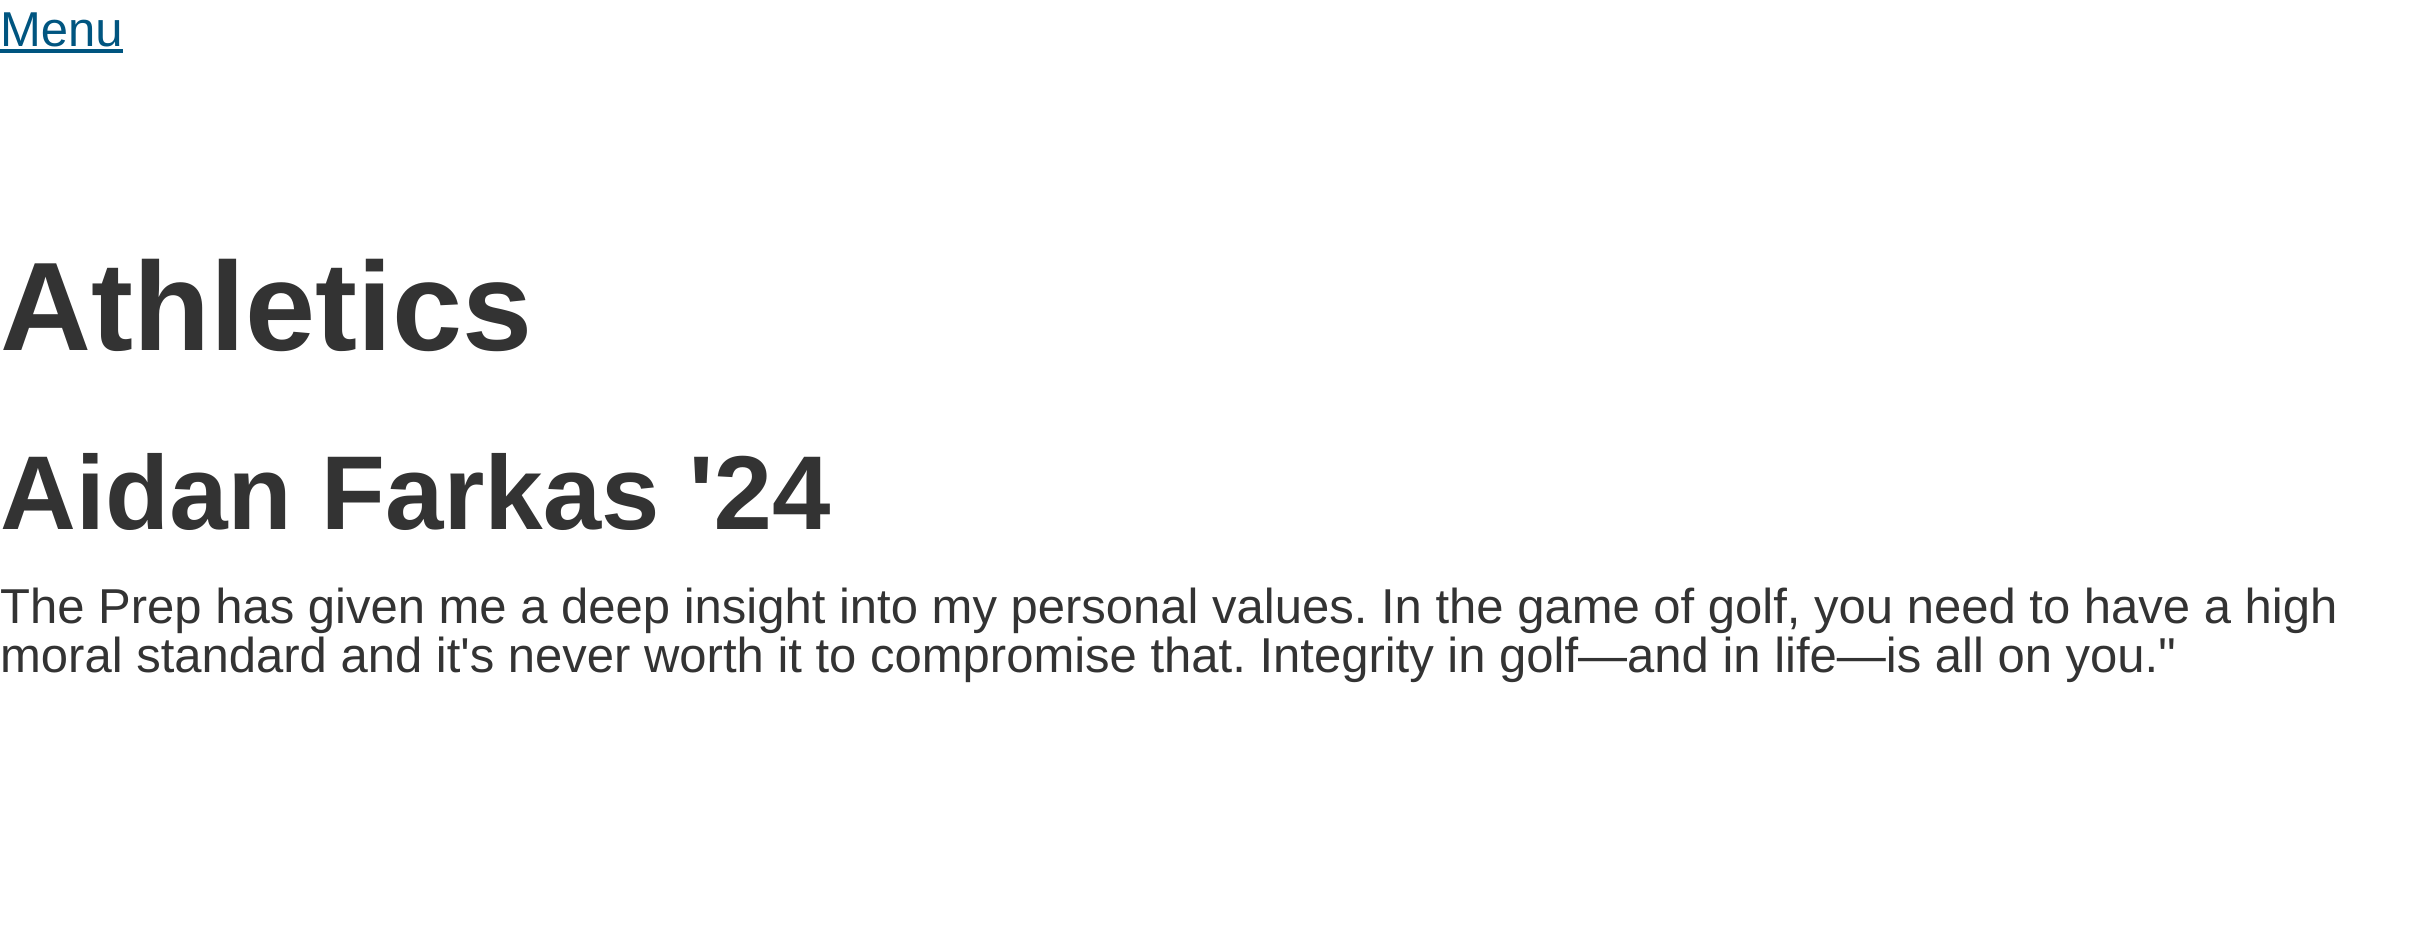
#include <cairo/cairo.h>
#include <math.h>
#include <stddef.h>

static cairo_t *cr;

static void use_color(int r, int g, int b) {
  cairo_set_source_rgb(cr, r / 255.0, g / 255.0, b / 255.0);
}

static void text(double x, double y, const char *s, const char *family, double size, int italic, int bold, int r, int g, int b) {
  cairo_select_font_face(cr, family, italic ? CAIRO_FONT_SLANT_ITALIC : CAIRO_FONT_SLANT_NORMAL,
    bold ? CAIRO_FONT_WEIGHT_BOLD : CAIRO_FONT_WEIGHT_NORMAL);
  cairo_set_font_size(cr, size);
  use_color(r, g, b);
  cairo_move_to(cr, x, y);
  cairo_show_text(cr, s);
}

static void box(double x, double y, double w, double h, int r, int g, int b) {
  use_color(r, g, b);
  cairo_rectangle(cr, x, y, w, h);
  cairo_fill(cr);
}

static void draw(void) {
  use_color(255, 255, 255);
  cairo_paint(cr);
  box(0, 49, 123, 4, 0, 85, 128);
  text(0, 46, "Menu", "Liberation Sans", 49, 0, 0, 0, 85, 128);
  text(0, 350, "Athletics", "Liberation Sans", 126, 0, 1, 51, 51, 51);
  text(0, 529, "Aidan Farkas '24", "Liberation Sans", 105, 0, 1, 51, 51, 51);
  text(0, 623, "The Prep has given me a deep insight into my personal values. In the game of golf, you need to have a high", "Liberation Sans", 49, 0, 0, 51, 51, 51);
  text(0, 672, "moral standard and it's never worth it to compromise that. Integrity in golf—and in life—is all on you.\"", "Liberation Sans", 49, 0, 0, 51, 51, 51);
}

int main(void) {
  cairo_surface_t *surface = cairo_image_surface_create(CAIRO_FORMAT_RGB24, 2427, 931);
  cr = cairo_create(surface);
  cairo_font_options_t *options = cairo_font_options_create();
  cairo_font_options_set_hint_metrics(options, CAIRO_HINT_METRICS_OFF);
  cairo_font_options_set_hint_style(options, CAIRO_HINT_STYLE_NONE);
  cairo_set_font_options(cr, options);
  cairo_set_miter_limit(cr, 4);
  draw();
  cairo_surface_write_to_png(surface, "out.png");
  cairo_font_options_destroy(options);
  cairo_destroy(cr);
  cairo_surface_destroy(surface);
  return 0;
}
